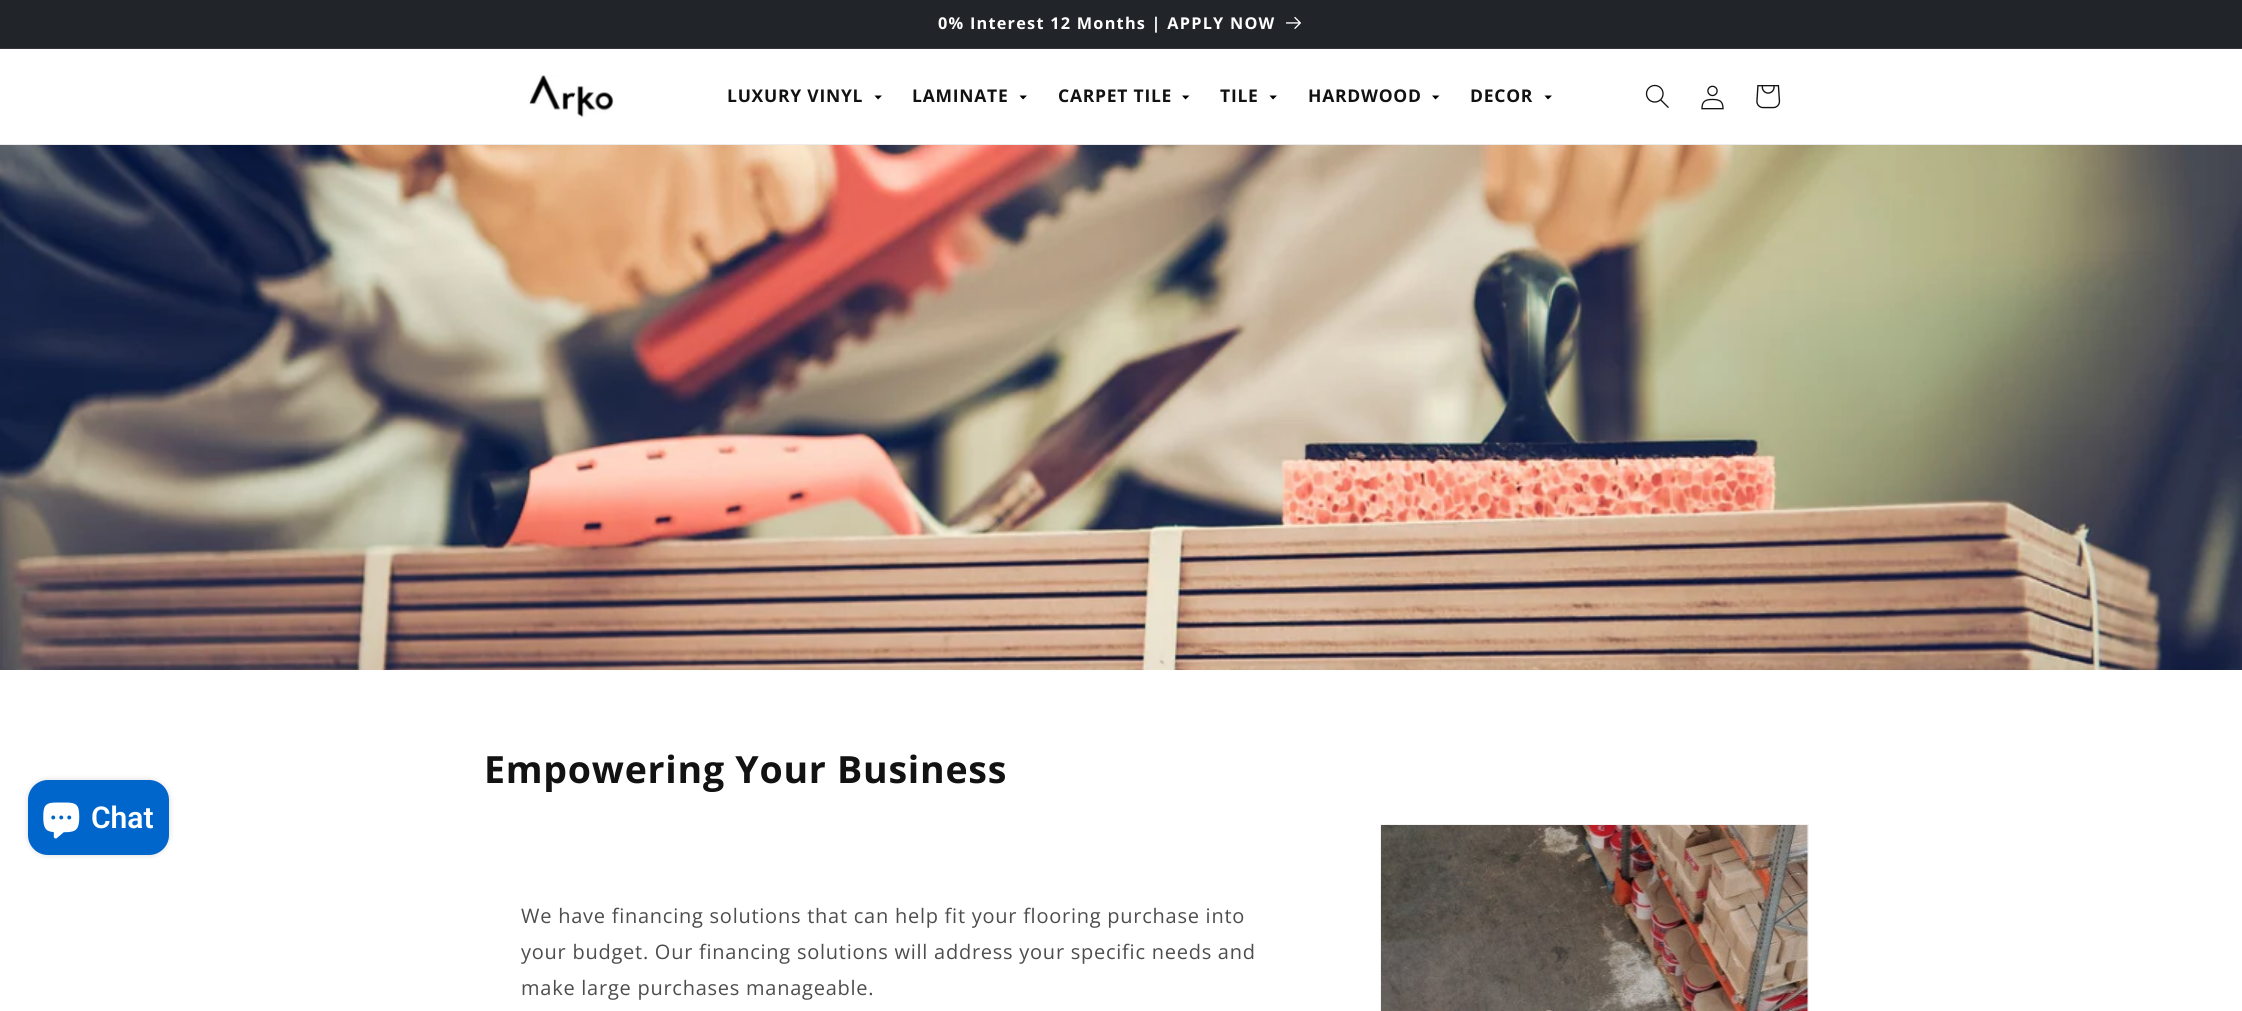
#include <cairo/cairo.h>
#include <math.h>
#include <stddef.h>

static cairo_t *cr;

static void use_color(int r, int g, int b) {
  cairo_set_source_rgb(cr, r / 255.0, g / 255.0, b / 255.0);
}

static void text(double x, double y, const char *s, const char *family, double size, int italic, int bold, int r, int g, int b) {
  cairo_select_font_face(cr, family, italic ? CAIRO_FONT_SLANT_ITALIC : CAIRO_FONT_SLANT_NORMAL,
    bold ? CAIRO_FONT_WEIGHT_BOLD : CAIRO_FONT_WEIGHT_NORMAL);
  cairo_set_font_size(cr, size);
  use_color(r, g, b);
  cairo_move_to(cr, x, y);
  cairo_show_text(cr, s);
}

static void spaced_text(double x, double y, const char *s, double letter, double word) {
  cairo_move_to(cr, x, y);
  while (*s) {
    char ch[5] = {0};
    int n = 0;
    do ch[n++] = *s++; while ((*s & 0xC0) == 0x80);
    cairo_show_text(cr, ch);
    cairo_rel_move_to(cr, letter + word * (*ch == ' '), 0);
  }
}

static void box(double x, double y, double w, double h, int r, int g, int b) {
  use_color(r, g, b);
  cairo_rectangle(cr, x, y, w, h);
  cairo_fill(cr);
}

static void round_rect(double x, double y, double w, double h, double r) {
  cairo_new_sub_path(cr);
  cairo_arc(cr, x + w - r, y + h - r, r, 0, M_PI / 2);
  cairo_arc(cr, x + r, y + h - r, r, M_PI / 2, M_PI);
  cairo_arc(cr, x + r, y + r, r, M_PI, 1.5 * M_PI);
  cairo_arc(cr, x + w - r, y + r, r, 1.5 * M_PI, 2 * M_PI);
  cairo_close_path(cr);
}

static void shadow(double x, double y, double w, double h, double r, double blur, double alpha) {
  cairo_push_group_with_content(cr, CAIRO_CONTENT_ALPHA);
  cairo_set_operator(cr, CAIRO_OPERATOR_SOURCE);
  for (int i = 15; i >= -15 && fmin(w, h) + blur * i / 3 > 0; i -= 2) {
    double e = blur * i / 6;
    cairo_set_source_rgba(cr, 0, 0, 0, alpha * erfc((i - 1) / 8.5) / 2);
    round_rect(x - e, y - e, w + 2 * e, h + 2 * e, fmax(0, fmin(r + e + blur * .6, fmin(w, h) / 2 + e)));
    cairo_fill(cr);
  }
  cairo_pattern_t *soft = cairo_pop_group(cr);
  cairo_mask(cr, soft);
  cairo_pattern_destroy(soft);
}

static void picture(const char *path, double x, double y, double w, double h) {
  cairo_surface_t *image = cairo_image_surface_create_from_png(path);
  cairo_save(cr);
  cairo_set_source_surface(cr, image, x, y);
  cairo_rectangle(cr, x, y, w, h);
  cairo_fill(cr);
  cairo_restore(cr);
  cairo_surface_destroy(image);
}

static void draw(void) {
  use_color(255, 255, 255);
  cairo_paint(cr);
  box(0, 0, 2242, 48, 33, 37, 41);
  box(0, 48, 2242, 1, 51, 54, 58);
  picture("img_01.png", 1286, 17, 15, 12);
  box(0, 144, 2242, 1, 236, 236, 236);
  picture("img_02.png", 528, 75, 86, 43);
  use_color(0, 0, 0);
  cairo_new_path(cr);
  cairo_move_to(cr, 874.5, 95.5);
  cairo_line_to(cr, 878, 99.5);
  cairo_line_to(cr, 882, 95.5);
  cairo_close_path(cr);
  cairo_fill(cr);
  cairo_new_path(cr);
  cairo_move_to(cr, 1019.5, 95.5);
  cairo_line_to(cr, 1023, 99.5);
  cairo_line_to(cr, 1027, 95.5);
  cairo_close_path(cr);
  cairo_fill(cr);
  cairo_new_path(cr);
  cairo_move_to(cr, 1182, 95.5);
  cairo_line_to(cr, 1185.5, 99.5);
  cairo_line_to(cr, 1189.5, 95.5);
  cairo_close_path(cr);
  cairo_fill(cr);
  cairo_new_path(cr);
  cairo_move_to(cr, 1269.5, 95.5);
  cairo_line_to(cr, 1273, 99.5);
  cairo_line_to(cr, 1277, 95.5);
  cairo_close_path(cr);
  cairo_fill(cr);
  cairo_new_path(cr);
  cairo_move_to(cr, 1432, 95.5);
  cairo_line_to(cr, 1435.5, 99.5);
  cairo_line_to(cr, 1439.5, 95.5);
  cairo_close_path(cr);
  cairo_fill(cr);
  cairo_new_path(cr);
  cairo_move_to(cr, 1544.5, 95.5);
  cairo_line_to(cr, 1548, 99.5);
  cairo_line_to(cr, 1552, 95.5);
  cairo_close_path(cr);
  cairo_fill(cr);
  picture("img_03.png", 1645, 84, 24, 24);
  picture("img_04.png", 1701, 85, 23, 25);
  picture("img_05.png", 1756, 85, 25, 24);
  use_color(0, 0, 0);
  shadow(28, 780, 141, 75, 20, 3, 0.15);
  use_color(0, 102, 204);
  round_rect(28, 780, 141, 75, 20);
  cairo_fill(cr);
  picture("img_06.png", 43, 802, 37, 37);
  picture("img_07.png", 0, 145, 2242, 525);
  cairo_rectangle(cr, 1380.5, 824.5, 428, 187);
  use_color(243, 243, 243);
  cairo_set_line_width(cr, 1);
  cairo_stroke(cr);
  picture("img_08.png", 1381, 825, 427, 186);
  cairo_select_font_face(cr, "Open Sans", CAIRO_FONT_SLANT_NORMAL, CAIRO_FONT_WEIGHT_BOLD);
  cairo_set_font_size(cr, 16.25);
  use_color(255, 255, 255);
  spaced_text(938, 29, "0% Interest 12 Months | APPLY NOW", 1.25, 0);
  cairo_set_font_size(cr, 17.5);
  use_color(18, 18, 18);
  spaced_text(727, 102, "LUXURY VINYL", 0.75, 0);
  spaced_text(912, 102, "LAMINATE", 0.75, 0);
  spaced_text(1058, 102, "CARPET TILE", 0.75, 0);
  spaced_text(1220, 102, "TILE", 0.75, 0);
  spaced_text(1308, 102, "HARDWOOD", 0.75, 0);
  spaced_text(1470, 102, "DECOR", 0.75, 0);
  text(91, 828, "Chat", "Roboto SemiBold", 30, 0, 0, 255, 255, 255);
  cairo_select_font_face(cr, "Open Sans", CAIRO_FONT_SLANT_NORMAL, CAIRO_FONT_WEIGHT_BOLD);
  cairo_set_font_size(cr, 37.5);
  use_color(18, 18, 18);
  spaced_text(484, 783, "Empowering Your Business", 0.75, 0);
  cairo_select_font_face(cr, "Open Sans", CAIRO_FONT_SLANT_NORMAL, CAIRO_FONT_WEIGHT_NORMAL);
  cairo_set_font_size(cr, 20);
  use_color(77, 77, 77);
  spaced_text(521, 923, "We have financing solutions that can help fit your flooring purchase into", 0.75, 0);
  spaced_text(521, 959, "your budget. Our financing solutions will address your specific needs and", 0.75, 0);
  spaced_text(521, 995, "make large purchases manageable.", 0.75, 0);
}

int main(void) {
  cairo_surface_t *surface = cairo_image_surface_create(CAIRO_FORMAT_RGB24, 2242, 1011);
  cr = cairo_create(surface);
  cairo_font_options_t *options = cairo_font_options_create();
  cairo_font_options_set_hint_metrics(options, CAIRO_HINT_METRICS_OFF);
  cairo_font_options_set_hint_style(options, CAIRO_HINT_STYLE_NONE);
  cairo_set_font_options(cr, options);
  cairo_set_miter_limit(cr, 4);
  draw();
  cairo_surface_write_to_png(surface, "out.png");
  cairo_font_options_destroy(options);
  cairo_destroy(cr);
  cairo_surface_destroy(surface);
  return 0;
}
